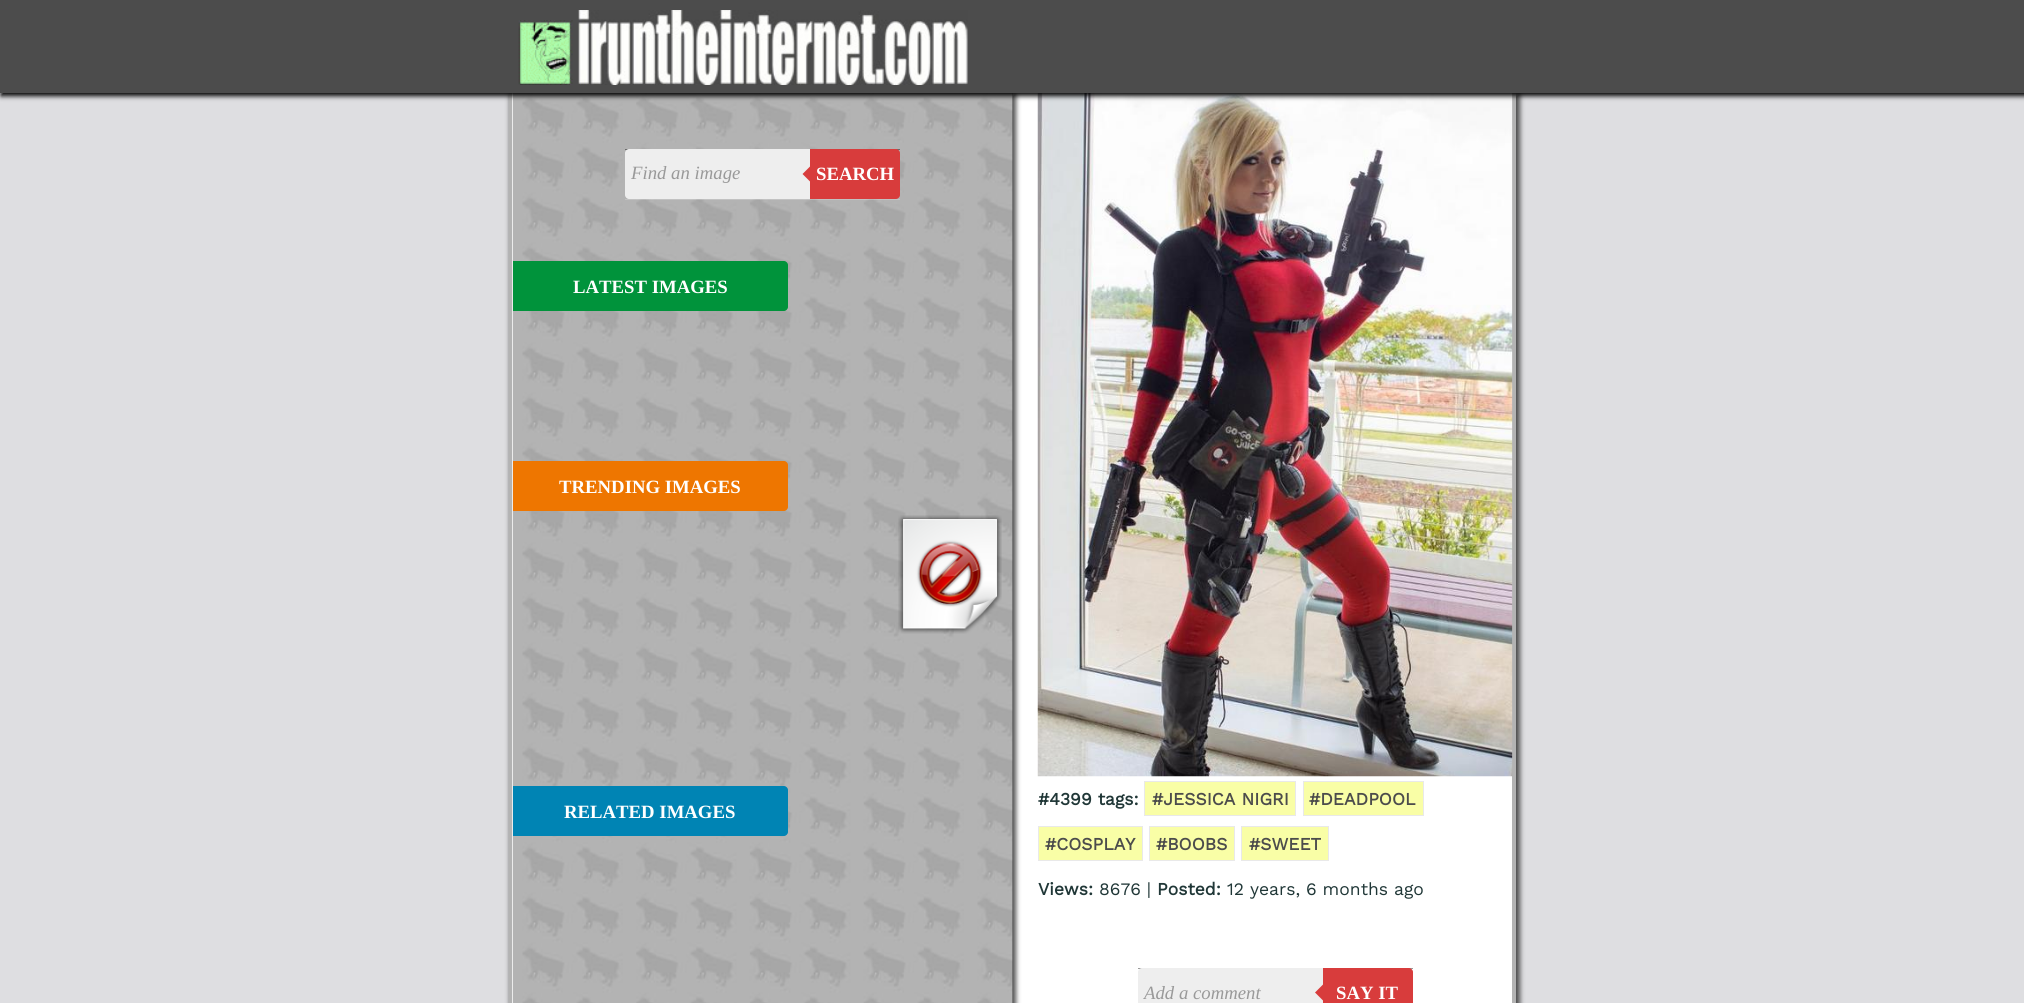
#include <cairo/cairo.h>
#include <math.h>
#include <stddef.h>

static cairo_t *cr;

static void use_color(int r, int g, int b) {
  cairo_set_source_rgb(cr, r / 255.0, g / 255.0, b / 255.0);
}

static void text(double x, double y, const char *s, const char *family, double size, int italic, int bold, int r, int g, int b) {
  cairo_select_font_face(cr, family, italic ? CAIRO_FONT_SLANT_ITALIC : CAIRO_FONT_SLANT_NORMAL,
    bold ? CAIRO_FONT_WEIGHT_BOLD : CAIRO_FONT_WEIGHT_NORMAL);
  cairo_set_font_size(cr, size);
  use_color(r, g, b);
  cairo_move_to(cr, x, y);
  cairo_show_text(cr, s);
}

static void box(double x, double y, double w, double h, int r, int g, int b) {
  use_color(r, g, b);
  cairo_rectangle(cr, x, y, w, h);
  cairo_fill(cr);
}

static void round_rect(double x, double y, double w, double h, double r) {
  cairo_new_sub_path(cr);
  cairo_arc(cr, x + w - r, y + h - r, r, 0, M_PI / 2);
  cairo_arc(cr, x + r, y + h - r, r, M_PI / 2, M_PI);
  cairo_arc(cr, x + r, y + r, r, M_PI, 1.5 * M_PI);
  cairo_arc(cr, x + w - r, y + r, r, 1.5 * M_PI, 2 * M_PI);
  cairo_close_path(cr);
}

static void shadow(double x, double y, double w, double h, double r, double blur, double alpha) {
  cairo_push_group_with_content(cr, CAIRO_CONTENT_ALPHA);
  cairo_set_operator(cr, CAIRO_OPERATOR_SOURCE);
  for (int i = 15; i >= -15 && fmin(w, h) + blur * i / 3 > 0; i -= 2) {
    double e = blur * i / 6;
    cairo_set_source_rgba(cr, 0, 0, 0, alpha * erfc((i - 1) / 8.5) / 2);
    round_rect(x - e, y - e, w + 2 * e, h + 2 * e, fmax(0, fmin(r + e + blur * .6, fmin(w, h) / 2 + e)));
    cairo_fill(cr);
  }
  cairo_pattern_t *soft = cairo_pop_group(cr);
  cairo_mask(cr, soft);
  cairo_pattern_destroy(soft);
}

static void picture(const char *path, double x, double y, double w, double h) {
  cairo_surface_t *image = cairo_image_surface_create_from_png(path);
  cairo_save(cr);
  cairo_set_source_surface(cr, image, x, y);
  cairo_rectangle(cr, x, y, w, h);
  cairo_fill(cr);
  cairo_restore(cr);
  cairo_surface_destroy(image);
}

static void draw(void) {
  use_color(222, 222, 225);
  cairo_paint(cr);
  use_color(76, 76, 76);
  shadow(510, 94, 1010, 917, 0, 2.5, 1);
  box(509, 93, 1007, 910, 255, 255, 255);
  cairo_set_source_rgba(cr, 0, 0, 0, 0.3);
  cairo_new_path(cr);
  cairo_move_to(cr, 1516, 92);
  cairo_line_to(cr, 1516, 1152);
  cairo_line_to(cr, 1512, 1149);
  cairo_line_to(cr, 1512, 92);
  cairo_close_path(cr);
  cairo_fill(cr);
  cairo_new_path(cr);
  cairo_move_to(cr, 509, 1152);
  cairo_line_to(cr, 509, 92);
  cairo_line_to(cr, 512, 92);
  cairo_line_to(cr, 512, 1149);
  cairo_close_path(cr);
  cairo_fill(cr);
  cairo_save(cr);
  cairo_rectangle(cr, 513, 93, 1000, 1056);
  cairo_clip(cr);
  use_color(76, 76, 76);
  shadow(514, 94, 502, 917, 0, 2.5, 1);
  cairo_restore(cr);
  cairo_rectangle(cr, 1012, 93, 1, 910);
  cairo_fill(cr);
  picture("img_03.png", 512, 93, 501, 910);
  picture("img_05.png", 1037, 93, 476, 684);
  use_color(0, 0, 0);
  shadow(1, 1, 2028, 95, 0, 2.5, 1);
  box(0, 0, 2024, 93, 76, 76, 76);
  picture("img_01.png", 518, 20, 55, 65);
  picture("img_02.png", 578, 10, 390, 75);
  cairo_set_source_rgba(cr, 1, 1, 1, 0.2);
  cairo_rectangle(cr, 625, 199, 275, 1);
  cairo_fill(cr);
  cairo_set_source_rgba(cr, 0, 0, 0, 0.4);
  cairo_rectangle(cr, 625, 149, 275, 1);
  cairo_fill(cr);
  use_color(238, 238, 238);
  cairo_new_path(cr);
  cairo_move_to(cr, 629, 149);
  cairo_line_to(cr, 810, 149);
  cairo_line_to(cr, 810, 199);
  cairo_line_to(cr, 629, 199);
  cairo_curve_to(cr, 627, 199, 625, 197, 625, 195);
  cairo_line_to(cr, 625, 153);
  cairo_curve_to(cr, 625, 151, 627, 149, 629, 149);
  cairo_close_path(cr);
  cairo_fill(cr);
  use_color(216, 60, 60);
  cairo_new_path(cr);
  cairo_move_to(cr, 810, 149);
  cairo_line_to(cr, 896, 149);
  cairo_curve_to(cr, 898, 149, 900, 151, 900, 153);
  cairo_line_to(cr, 900, 195);
  cairo_curve_to(cr, 900, 197, 898, 199, 896, 199);
  cairo_line_to(cr, 810, 199);
  cairo_close_path(cr);
  cairo_fill(cr);
  cairo_new_path(cr);
  cairo_move_to(cr, 812.5, 164);
  cairo_line_to(cr, 812.5, 184);
  cairo_line_to(cr, 802.5, 174);
  cairo_close_path(cr);
  cairo_fill(cr);
  use_color(0, 147, 59);
  cairo_new_path(cr);
  cairo_move_to(cr, 513, 261);
  cairo_line_to(cr, 784, 261);
  cairo_curve_to(cr, 786, 261, 788, 263, 788, 265);
  cairo_line_to(cr, 788, 307);
  cairo_curve_to(cr, 788, 309, 786, 311, 784, 311);
  cairo_line_to(cr, 513, 311);
  cairo_close_path(cr);
  cairo_fill(cr);
  use_color(238, 118, 0);
  cairo_new_path(cr);
  cairo_move_to(cr, 513, 461);
  cairo_line_to(cr, 784, 461);
  cairo_curve_to(cr, 786, 461, 788, 463, 788, 465);
  cairo_line_to(cr, 788, 507);
  cairo_curve_to(cr, 788, 509, 786, 511, 784, 511);
  cairo_line_to(cr, 513, 511);
  cairo_close_path(cr);
  cairo_fill(cr);
  picture("img_04.png", 898, 515, 104, 119);
  use_color(0, 132, 180);
  cairo_new_path(cr);
  cairo_move_to(cr, 513, 786);
  cairo_line_to(cr, 784, 786);
  cairo_curve_to(cr, 786, 786, 788, 788, 788, 790);
  cairo_line_to(cr, 788, 832);
  cairo_curve_to(cr, 788, 834, 786, 836, 784, 836);
  cairo_line_to(cr, 513, 836);
  cairo_close_path(cr);
  cairo_fill(cr);
  use_color(249, 254, 166);
  cairo_rectangle(cr, 1144.5, 781.5, 151, 34);
  cairo_fill_preserve(cr);
  use_color(233, 233, 233);
  cairo_set_line_width(cr, 1);
  cairo_stroke(cr);
  use_color(249, 254, 166);
  cairo_rectangle(cr, 1303.5, 781.5, 120, 34);
  cairo_fill_preserve(cr);
  use_color(233, 233, 233);
  cairo_stroke(cr);
  use_color(249, 254, 166);
  cairo_rectangle(cr, 1038.5, 826.5, 104, 34);
  cairo_fill_preserve(cr);
  use_color(233, 233, 233);
  cairo_stroke(cr);
  use_color(249, 254, 166);
  cairo_rectangle(cr, 1149.5, 826.5, 85, 34);
  cairo_fill_preserve(cr);
  use_color(233, 233, 233);
  cairo_stroke(cr);
  use_color(249, 254, 166);
  cairo_rectangle(cr, 1241.5, 826.5, 87, 34);
  cairo_fill_preserve(cr);
  use_color(233, 233, 233);
  cairo_stroke(cr);
  box(1138, 968, 275, 1, 153, 153, 153);
  use_color(238, 238, 238);
  cairo_new_path(cr);
  cairo_move_to(cr, 1142, 968);
  cairo_line_to(cr, 1323, 968);
  cairo_line_to(cr, 1323, 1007);
  cairo_line_to(cr, 1142, 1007);
  cairo_curve_to(cr, 1140, 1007, 1138, 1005, 1138, 1003);
  cairo_line_to(cr, 1138, 972);
  cairo_curve_to(cr, 1138, 970, 1140, 968, 1142, 968);
  cairo_close_path(cr);
  cairo_fill(cr);
  use_color(216, 60, 60);
  cairo_new_path(cr);
  cairo_move_to(cr, 1323, 968);
  cairo_line_to(cr, 1409, 968);
  cairo_curve_to(cr, 1411, 968, 1413, 970, 1413, 972);
  cairo_line_to(cr, 1413, 1003);
  cairo_curve_to(cr, 1413, 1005, 1411, 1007, 1409, 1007);
  cairo_line_to(cr, 1323, 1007);
  cairo_close_path(cr);
  cairo_fill(cr);
  cairo_new_path(cr);
  cairo_move_to(cr, 1325, 982.5);
  cairo_line_to(cr, 1325, 1002.5);
  cairo_line_to(cr, 1315, 992.5);
  cairo_close_path(cr);
  cairo_fill(cr);
  text(631, 179, "Find an image", "Liberation Serif", 18.75, 1, 0, 153, 153, 153);
  text(816, 180, "SEARCH", "Liberation Serif", 18.75, 0, 1, 255, 255, 255);
  text(573, 293, "LATEST IMAGES", "Liberation Serif", 18.75, 0, 1, 255, 255, 255);
  text(559, 493, "TRENDING IMAGES", "Liberation Serif", 18.75, 0, 1, 255, 255, 255);
  text(564, 818, "RELATED IMAGES", "Liberation Serif", 18.75, 0, 1, 255, 255, 255);
  text(1038, 805, "#4399 tags:", "Work Sans", 17.5, 0, 1, 32, 55, 55);
  text(1152, 805, "#JESSICA NIGRI", "Work Sans", 17.5, 0, 1, 76, 76, 76);
  text(1309, 805, "#DEADPOOL", "Work Sans", 17.5, 0, 1, 76, 76, 76);
  text(1045, 850, "#COSPLAY", "Work Sans", 17.5, 0, 1, 76, 76, 76);
  text(1156, 850, "#BOOBS", "Work Sans", 17.5, 0, 1, 76, 76, 76);
  text(1249, 850, "#SWEET", "Work Sans", 17.5, 0, 1, 76, 76, 76);
  text(1038, 895, "Views:", "Work Sans", 17.5, 0, 1, 32, 55, 55);
  text(1099, 895, "8676 |", "Work Sans", 17.5, 0, 0, 32, 55, 55);
  text(1157, 895, "Posted:", "Work Sans", 17.5, 0, 1, 32, 55, 55);
  text(1227, 895, "12 years, 6 months ago", "Work Sans", 17.5, 0, 0, 32, 55, 55);
  text(1144, 999, "Add a comment", "Liberation Serif", 18.75, 1, 0, 153, 153, 153);
  text(1336, 999, "SAY IT", "Liberation Serif", 18.75, 0, 1, 255, 255, 255);
}

int main(void) {
  cairo_surface_t *surface = cairo_image_surface_create(CAIRO_FORMAT_RGB24, 2024, 1003);
  cr = cairo_create(surface);
  cairo_font_options_t *options = cairo_font_options_create();
  cairo_font_options_set_hint_metrics(options, CAIRO_HINT_METRICS_OFF);
  cairo_font_options_set_hint_style(options, CAIRO_HINT_STYLE_NONE);
  cairo_set_font_options(cr, options);
  cairo_set_miter_limit(cr, 4);
  draw();
  cairo_surface_write_to_png(surface, "out.png");
  cairo_font_options_destroy(options);
  cairo_destroy(cr);
  cairo_surface_destroy(surface);
  return 0;
}
